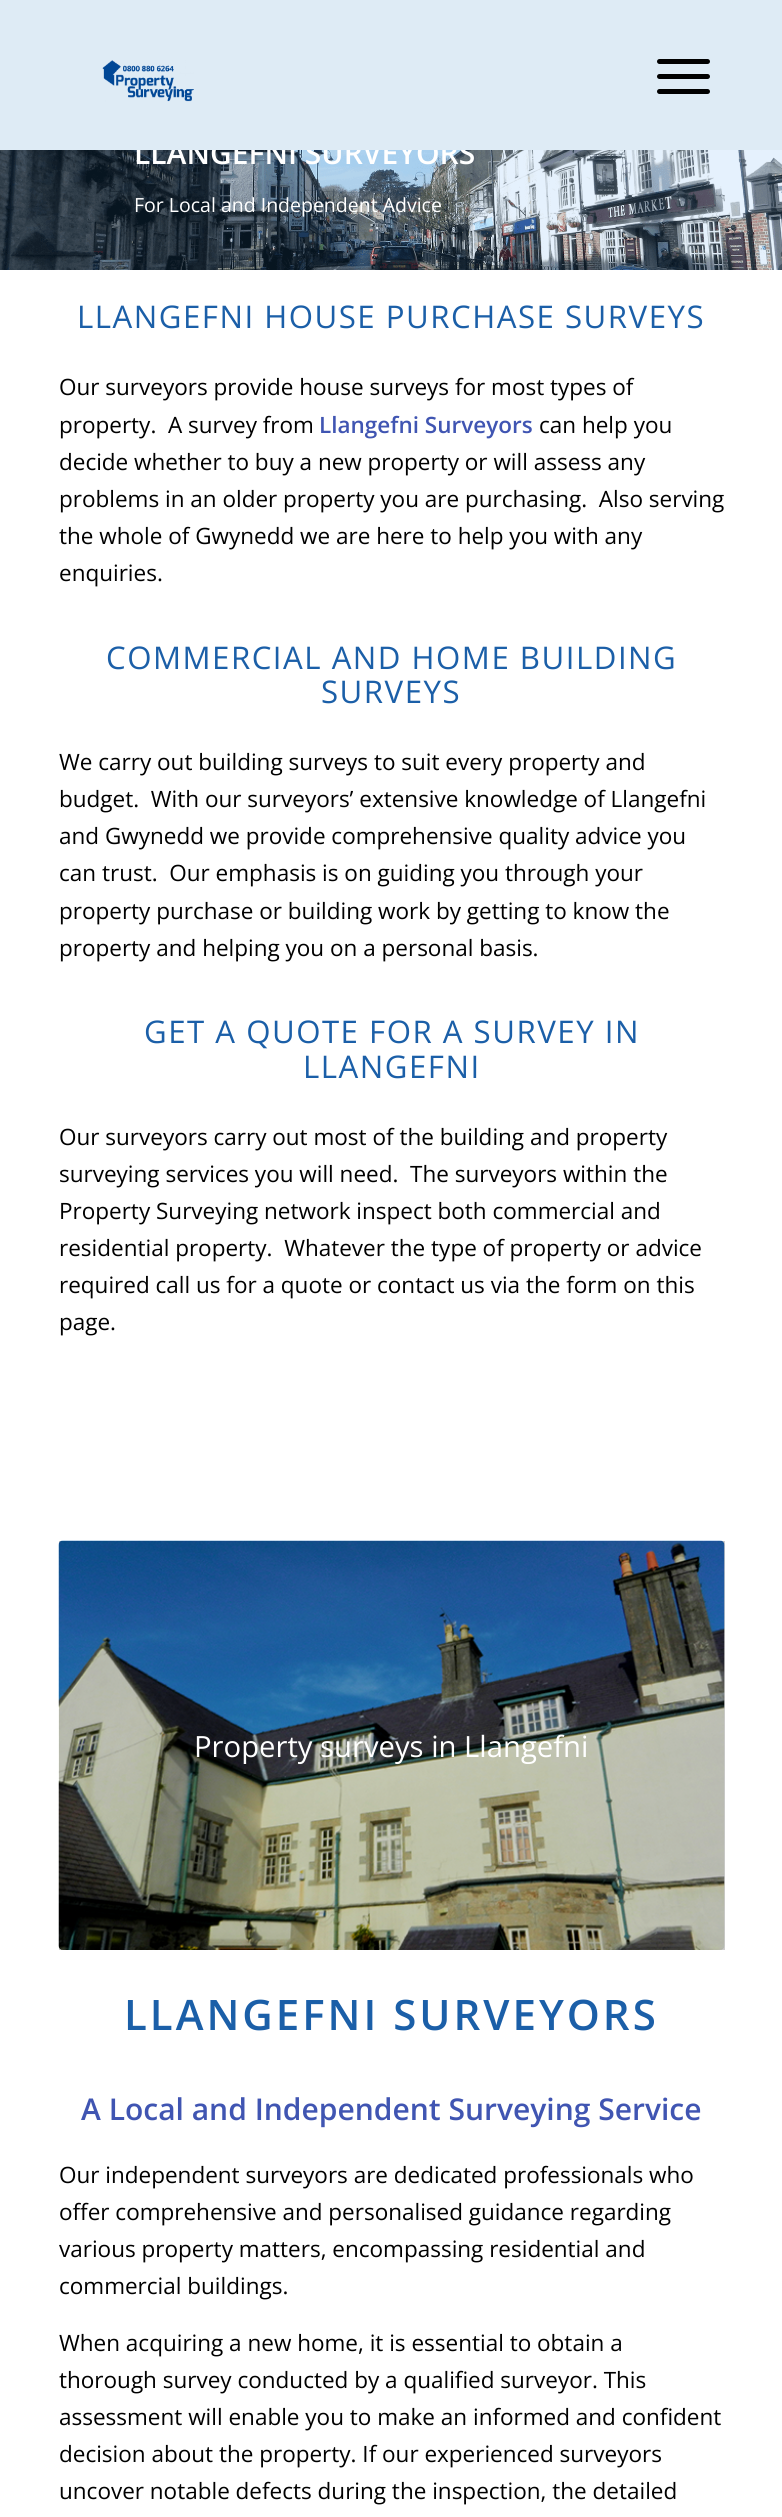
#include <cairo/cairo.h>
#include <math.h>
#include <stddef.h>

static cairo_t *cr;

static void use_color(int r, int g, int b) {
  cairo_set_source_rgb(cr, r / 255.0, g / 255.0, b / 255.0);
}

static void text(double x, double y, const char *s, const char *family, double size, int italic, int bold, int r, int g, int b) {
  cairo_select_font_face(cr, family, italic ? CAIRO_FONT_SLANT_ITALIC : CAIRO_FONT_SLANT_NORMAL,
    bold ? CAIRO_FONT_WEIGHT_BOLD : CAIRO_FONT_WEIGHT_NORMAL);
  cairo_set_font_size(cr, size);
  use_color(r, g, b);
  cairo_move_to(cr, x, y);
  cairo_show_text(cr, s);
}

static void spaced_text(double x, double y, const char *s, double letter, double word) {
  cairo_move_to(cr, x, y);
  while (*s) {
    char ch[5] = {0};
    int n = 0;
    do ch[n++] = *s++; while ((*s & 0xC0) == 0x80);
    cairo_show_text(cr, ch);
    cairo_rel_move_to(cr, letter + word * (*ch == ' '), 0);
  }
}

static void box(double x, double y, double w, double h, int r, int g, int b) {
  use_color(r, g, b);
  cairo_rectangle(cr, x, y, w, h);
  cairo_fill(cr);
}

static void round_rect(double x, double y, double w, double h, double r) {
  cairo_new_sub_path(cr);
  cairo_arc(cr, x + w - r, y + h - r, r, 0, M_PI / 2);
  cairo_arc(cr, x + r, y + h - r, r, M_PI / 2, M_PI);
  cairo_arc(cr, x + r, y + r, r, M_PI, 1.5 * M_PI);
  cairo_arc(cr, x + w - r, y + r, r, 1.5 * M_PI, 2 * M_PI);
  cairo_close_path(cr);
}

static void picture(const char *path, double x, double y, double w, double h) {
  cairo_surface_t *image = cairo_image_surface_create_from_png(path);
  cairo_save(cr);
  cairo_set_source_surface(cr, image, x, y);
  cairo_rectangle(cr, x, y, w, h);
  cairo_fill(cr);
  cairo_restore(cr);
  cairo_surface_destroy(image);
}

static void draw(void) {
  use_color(255, 255, 255);
  cairo_paint(cr);
  picture("img_02.png", 0, 150, 782, 120);
  box(59, 1541, 666, 409, 204, 204, 204);
  picture("img_03.png", 58, 1540, 667, 410);
  text(134, 164, "LLANGEFNI SURVEYORS", "Open Sans SemiBold", 30, 0, 0, 255, 255, 255);
  box(0, 0, 782, 150, 222, 235, 245);
  use_color(0, 0, 0);
  round_rect(657, 89, 53, 5, 2.5);
  cairo_fill(cr);
  round_rect(657, 59, 53, 5, 2.5);
  cairo_fill(cr);
  round_rect(657, 74, 53, 5, 2.5);
  cairo_fill(cr);
  picture("img_01.png", 102, 60, 92, 42);
  text(134, 212, "For Local and Independent Advice", "Open Sans", 19.5, 0, 0, 255, 255, 255);
  cairo_set_font_size(cr, 31.2);
  use_color(27, 95, 168);
  spaced_text(77, 328, "LLANGEFNI HOUSE PURCHASE SURVEYS", 1.5, 0);
  text(59, 395, "Our surveyors provide house surveys for most types of", "Open Sans", 22.5, 0, 0, 0, 0, 0);
  text(59, 433, "property.  A survey from", "Open Sans", 22.5, 0, 0, 0, 0, 0);
  text(319, 433, "Llangefni Surveyors", "Open Sans SemiBold", 22.5, 0, 0, 64, 85, 178);
  text(539, 433, "can help you", "Open Sans", 22.5, 0, 0, 0, 0, 0);
  text(59, 470, "decide whether to buy a new property or will assess any", "Open Sans", 22.5, 0, 0, 0, 0, 0);
  text(59, 507, "problems in an older property you are purchasing.  Also serving", "Open Sans", 22.5, 0, 0, 0, 0, 0);
  text(59, 544, "the whole of Gwynedd we are here to help you with any", "Open Sans", 22.5, 0, 0, 0, 0, 0);
  text(59, 581, "enquiries.", "Open Sans", 22.5, 0, 0, 0, 0, 0);
  cairo_set_font_size(cr, 31.2);
  use_color(27, 95, 168);
  spaced_text(106, 669, "COMMERCIAL AND HOME BUILDING", 1.5, 0);
  spaced_text(321, 703, "SURVEYS", 1.5, 0);
  text(59, 770, "We carry out building surveys to suit every property and", "Open Sans", 22.5, 0, 0, 0, 0, 0);
  text(59, 807, "budget.  With our surveyors’ extensive knowledge of Llangefni", "Open Sans", 22.5, 0, 0, 0, 0, 0);
  text(59, 844, "and Gwynedd we provide comprehensive quality advice you", "Open Sans", 22.5, 0, 0, 0, 0, 0);
  text(59, 881, "can trust.  Our emphasis is on guiding you through your", "Open Sans", 22.5, 0, 0, 0, 0, 0);
  text(59, 919, "property purchase or building work by getting to know the", "Open Sans", 22.5, 0, 0, 0, 0, 0);
  text(59, 956, "property and helping you on a personal basis.", "Open Sans", 22.5, 0, 0, 0, 0, 0);
  cairo_set_font_size(cr, 31.2);
  use_color(27, 95, 168);
  spaced_text(144, 1043, "GET A QUOTE FOR A SURVEY IN", 1.5, 0);
  spaced_text(303, 1078, "LLANGEFNI", 1.5, 0);
  text(59, 1145, "Our surveyors carry out most of the building and property", "Open Sans", 22.5, 0, 0, 0, 0, 0);
  text(59, 1182, "surveying services you will need.  The surveyors within the", "Open Sans", 22.5, 0, 0, 0, 0, 0);
  text(59, 1219, "Property Surveying network inspect both commercial and", "Open Sans", 22.5, 0, 0, 0, 0, 0);
  text(59, 1256, "residential property.  Whatever the type of property or advice", "Open Sans", 22.5, 0, 0, 0, 0, 0);
  text(59, 1293, "required call us for a quote or contact us via the form on this", "Open Sans", 22.5, 0, 0, 0, 0, 0);
  text(59, 1330, "page.", "Open Sans", 22.5, 0, 0, 0, 0, 0);
  text(194, 1757, "Property surveys in Llangefni", "Open Sans", 29.25, 0, 0, 255, 255, 255);
  cairo_select_font_face(cr, "Open Sans SemiBold", CAIRO_FONT_SLANT_NORMAL, CAIRO_FONT_WEIGHT_NORMAL);
  cairo_set_font_size(cr, 42);
  use_color(27, 95, 168);
  spaced_text(124, 2030, "LLANGEFNI SURVEYORS", 3, 0);
  text(81, 2120, "A Local and Independent Surveying Service", "Open Sans SemiBold", 30, 0, 0, 64, 85, 178);
  text(59, 2183, "Our independent surveyors are dedicated professionals who", "Open Sans", 22.5, 0, 0, 0, 0, 0);
  text(59, 2220, "offer comprehensive and personalised guidance regarding", "Open Sans", 22.5, 0, 0, 0, 0, 0);
  text(59, 2257, "various property matters, encompassing residential and", "Open Sans", 22.5, 0, 0, 0, 0, 0);
  text(59, 2294, "commercial buildings.", "Open Sans", 22.5, 0, 0, 0, 0, 0);
  text(59, 2351, "When acquiring a new home, it is essential to obtain a", "Open Sans", 22.5, 0, 0, 0, 0, 0);
  text(59, 2388, "thorough survey conducted by a qualified surveyor. This", "Open Sans", 22.5, 0, 0, 0, 0, 0);
  text(59, 2425, "assessment will enable you to make an informed and confident", "Open Sans", 22.5, 0, 0, 0, 0, 0);
  text(59, 2462, "decision about the property. If our experienced surveyors", "Open Sans", 22.5, 0, 0, 0, 0, 0);
  text(59, 2499, "uncover notable defects during the inspection, the detailed", "Open Sans", 22.5, 0, 0, 0, 0, 0);
}

int main(void) {
  cairo_surface_t *surface = cairo_image_surface_create(CAIRO_FORMAT_RGB24, 782, 2517);
  cr = cairo_create(surface);
  cairo_font_options_t *options = cairo_font_options_create();
  cairo_font_options_set_hint_metrics(options, CAIRO_HINT_METRICS_OFF);
  cairo_font_options_set_hint_style(options, CAIRO_HINT_STYLE_NONE);
  cairo_set_font_options(cr, options);
  cairo_set_miter_limit(cr, 4);
  draw();
  cairo_surface_write_to_png(surface, "out.png");
  cairo_font_options_destroy(options);
  cairo_destroy(cr);
  cairo_surface_destroy(surface);
  return 0;
}
